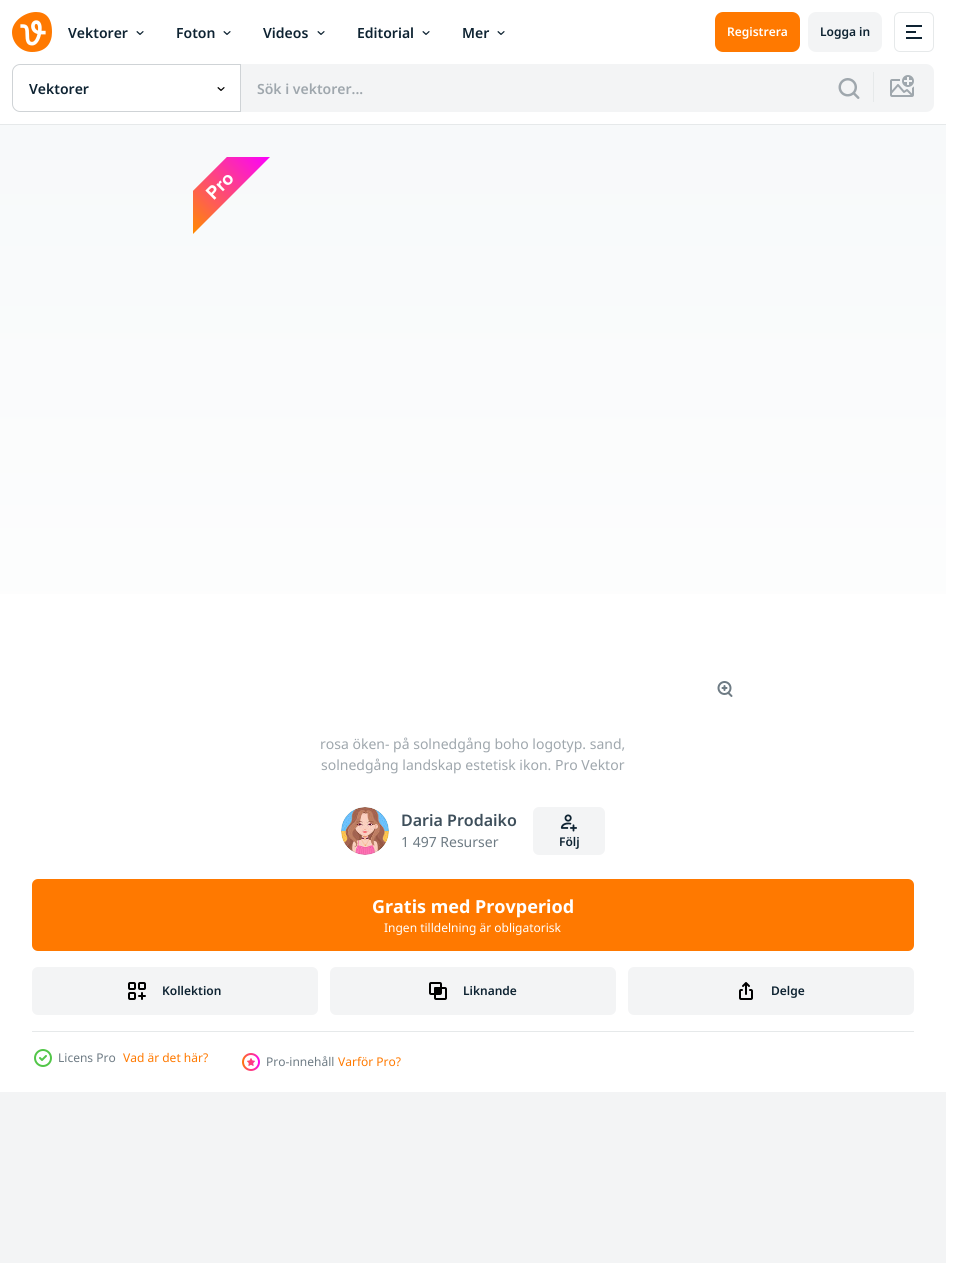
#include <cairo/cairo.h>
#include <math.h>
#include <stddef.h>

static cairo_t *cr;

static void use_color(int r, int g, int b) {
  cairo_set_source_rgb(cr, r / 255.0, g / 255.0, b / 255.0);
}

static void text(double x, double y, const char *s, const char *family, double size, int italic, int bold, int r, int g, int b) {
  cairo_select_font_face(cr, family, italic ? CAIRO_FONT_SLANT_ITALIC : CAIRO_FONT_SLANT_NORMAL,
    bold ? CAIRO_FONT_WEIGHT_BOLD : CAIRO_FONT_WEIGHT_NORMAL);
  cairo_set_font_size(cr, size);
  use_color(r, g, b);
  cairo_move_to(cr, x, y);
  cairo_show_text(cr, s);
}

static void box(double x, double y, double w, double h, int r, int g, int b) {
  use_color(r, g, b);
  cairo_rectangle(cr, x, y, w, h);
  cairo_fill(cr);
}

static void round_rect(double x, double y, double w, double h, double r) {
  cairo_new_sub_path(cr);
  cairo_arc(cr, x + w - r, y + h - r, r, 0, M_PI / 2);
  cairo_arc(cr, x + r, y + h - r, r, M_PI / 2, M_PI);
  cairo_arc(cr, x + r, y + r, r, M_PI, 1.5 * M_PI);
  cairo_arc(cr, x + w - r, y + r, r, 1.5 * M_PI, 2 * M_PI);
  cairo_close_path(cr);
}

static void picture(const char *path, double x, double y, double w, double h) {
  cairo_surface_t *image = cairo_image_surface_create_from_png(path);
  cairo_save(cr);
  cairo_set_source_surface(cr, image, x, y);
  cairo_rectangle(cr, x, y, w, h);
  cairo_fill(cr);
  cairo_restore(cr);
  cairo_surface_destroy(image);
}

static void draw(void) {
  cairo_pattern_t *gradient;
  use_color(255, 255, 255);
  cairo_paint(cr);
  box(0, 124, 946, 1, 230, 233, 234);
  picture("img_01.png", 12, 12, 40, 40);
  picture("img_02.png", 136, 31, 8, 4);
  picture("img_02.png", 223, 31, 8, 4);
  picture("img_02.png", 317, 31, 8, 4);
  picture("img_02.png", 422, 31, 8, 4);
  picture("img_02.png", 497, 31, 8, 4);
  use_color(255, 121, 0);
  round_rect(715, 12, 85, 40, 8);
  cairo_fill(cr);
  use_color(243, 244, 245);
  round_rect(808, 12, 74, 40, 8);
  cairo_fill(cr);
  round_rect(894.5, 12.5, 39, 39, 5.5);
  use_color(230, 233, 234);
  cairo_set_line_width(cr, 1);
  cairo_stroke(cr);
  box(906, 25, 16, 2, 14, 35, 50);
  box(906, 31, 10, 2, 14, 35, 50);
  box(906, 37, 16, 2, 14, 35, 50);
  use_color(243, 244, 245);
  round_rect(12, 64, 922, 48, 8);
  cairo_fill(cr);
  box(12, 64, 228, 48, 255, 255, 255);
  cairo_new_path(cr);
  cairo_move_to(cr, 20, 64.5);
  cairo_line_to(cr, 240.5, 64.5);
  cairo_line_to(cr, 240.5, 111.5);
  cairo_line_to(cr, 20, 111.5);
  cairo_curve_to(cr, 16, 111.5, 12.5, 108, 12.5, 104);
  cairo_line_to(cr, 12.5, 72);
  cairo_curve_to(cr, 12.5, 68, 16, 64.5, 20, 64.5);
  cairo_close_path(cr);
  use_color(207, 211, 214);
  cairo_stroke(cr);
  picture("img_03.png", 217, 87, 8, 4);
  picture("img_04.png", 838, 78, 22, 21);
  box(873, 72, 1, 30, 230, 233, 234);
  picture("img_05.png", 890, 75, 24, 22);
  gradient = cairo_pattern_create_linear(473, 125, 473, 807);
  cairo_pattern_add_color_stop_rgba(gradient, 0, 0.969, 0.976, 0.98, 1);
  cairo_pattern_add_color_stop_rgba(gradient, 1, 1, 1, 1, 1);
  cairo_set_source(cr, gradient);
  cairo_pattern_destroy(gradient);
  cairo_rectangle(cr, 0, 125, 946, 469);
  cairo_fill(cr);
  picture("img_06.png", 193, 157, 77, 77);
  picture("img_07.png", 717, 681, 16, 16);
  picture("img_08.png", 341, 807, 48, 48);
  cairo_arc(cr, 365, 831, 23.5, 0, 2 * M_PI);
  cairo_set_source_rgba(cr, 0, 0, 0, 0.07);
  cairo_stroke(cr);
  use_color(243, 244, 245);
  round_rect(533, 807, 72, 48, 6);
  cairo_fill(cr);
  picture("img_09.png", 560, 814, 17, 18);
  use_color(255, 121, 0);
  round_rect(32, 879, 882, 72, 6);
  cairo_fill(cr);
  use_color(243, 244, 245);
  round_rect(32, 967, 286, 48, 6);
  cairo_fill(cr);
  picture("img_10.png", 128, 982, 18, 18);
  round_rect(330, 967, 286, 48, 6);
  cairo_fill(cr);
  picture("img_11.png", 429, 982, 18, 18);
  round_rect(628, 967, 286, 48, 6);
  cairo_fill(cr);
  picture("img_12.png", 739, 982, 14, 18);
  box(32, 1031, 882, 1, 230, 233, 234);
  picture("img_13.png", 34, 1049, 18, 18);
  picture("img_14.png", 242, 1053, 18, 18);
  box(0, 1092, 946, 171, 243, 244, 245);
  text(68, 38, "Vektorer", "Noto Sans SemiBold", 14, 0, 0, 14, 35, 50);
  text(176, 38, "Foton", "Noto Sans SemiBold", 14, 0, 0, 14, 35, 50);
  text(263, 38, "Videos", "Noto Sans SemiBold", 14, 0, 0, 14, 35, 50);
  text(357, 38, "Editorial", "Noto Sans SemiBold", 14, 0, 0, 14, 35, 50);
  text(462, 38, "Mer", "Noto Sans SemiBold", 14, 0, 0, 14, 35, 50);
  text(727, 36, "Registrera", "Noto Sans SemiBold", 12, 0, 0, 255, 255, 255);
  text(820, 36, "Logga in", "Noto Sans SemiBold", 12, 0, 0, 14, 35, 50);
  text(29, 94, "Vektorer", "Noto Sans SemiBold", 14, 0, 0, 14, 35, 50);
  text(257, 94, "Sök i vektorer...", "Noto Sans SemiBold", 14, 0, 0, 159, 167, 173);
  text(320, 749, "rosa öken- på solnedgång boho logotyp. sand,", "Noto Sans", 14, 0, 0, 159, 167, 173);
  text(321, 770, "solnedgång landskap estetisk ikon. Pro Vektor", "Noto Sans", 14, 0, 0, 159, 167, 173);
  text(401, 826, "Daria Prodaiko", "Noto Sans SemiBold", 16, 0, 0, 62, 79, 91);
  text(401, 847, "1 497 Resurser", "Noto Sans", 14, 0, 0, 110, 123, 132);
  text(559, 846, "Följ", "Noto Sans SemiBold", 12, 0, 0, 14, 35, 50);
  text(372, 913, "Gratis med Provperiod", "Noto Sans", 18, 0, 1, 255, 255, 255);
  text(384, 932, "Ingen tilldelning är obligatorisk", "Noto Sans", 12, 0, 0, 255, 255, 255);
  text(162, 995, "Kollektion", "Noto Sans SemiBold", 12, 0, 0, 14, 35, 50);
  text(463, 995, "Liknande", "Noto Sans SemiBold", 12, 0, 0, 14, 35, 50);
  text(771, 995, "Delge", "Noto Sans SemiBold", 12, 0, 0, 14, 35, 50);
  text(58, 1062, "Licens Pro", "Noto Sans", 12, 0, 0, 110, 123, 132);
  text(123, 1062, "Vad är det här?", "Noto Sans", 12, 0, 0, 255, 121, 0);
  text(266, 1066, "Pro-innehåll", "Noto Sans", 12, 0, 0, 110, 123, 132);
  text(338, 1066, "Varför Pro?", "Noto Sans", 12, 0, 0, 255, 121, 0);
}

int main(void) {
  cairo_surface_t *surface = cairo_image_surface_create(CAIRO_FORMAT_RGB24, 961, 1263);
  cr = cairo_create(surface);
  cairo_font_options_t *options = cairo_font_options_create();
  cairo_font_options_set_hint_metrics(options, CAIRO_HINT_METRICS_OFF);
  cairo_font_options_set_hint_style(options, CAIRO_HINT_STYLE_NONE);
  cairo_set_font_options(cr, options);
  cairo_set_miter_limit(cr, 4);
  draw();
  cairo_surface_write_to_png(surface, "out.png");
  cairo_font_options_destroy(options);
  cairo_destroy(cr);
  cairo_surface_destroy(surface);
  return 0;
}
